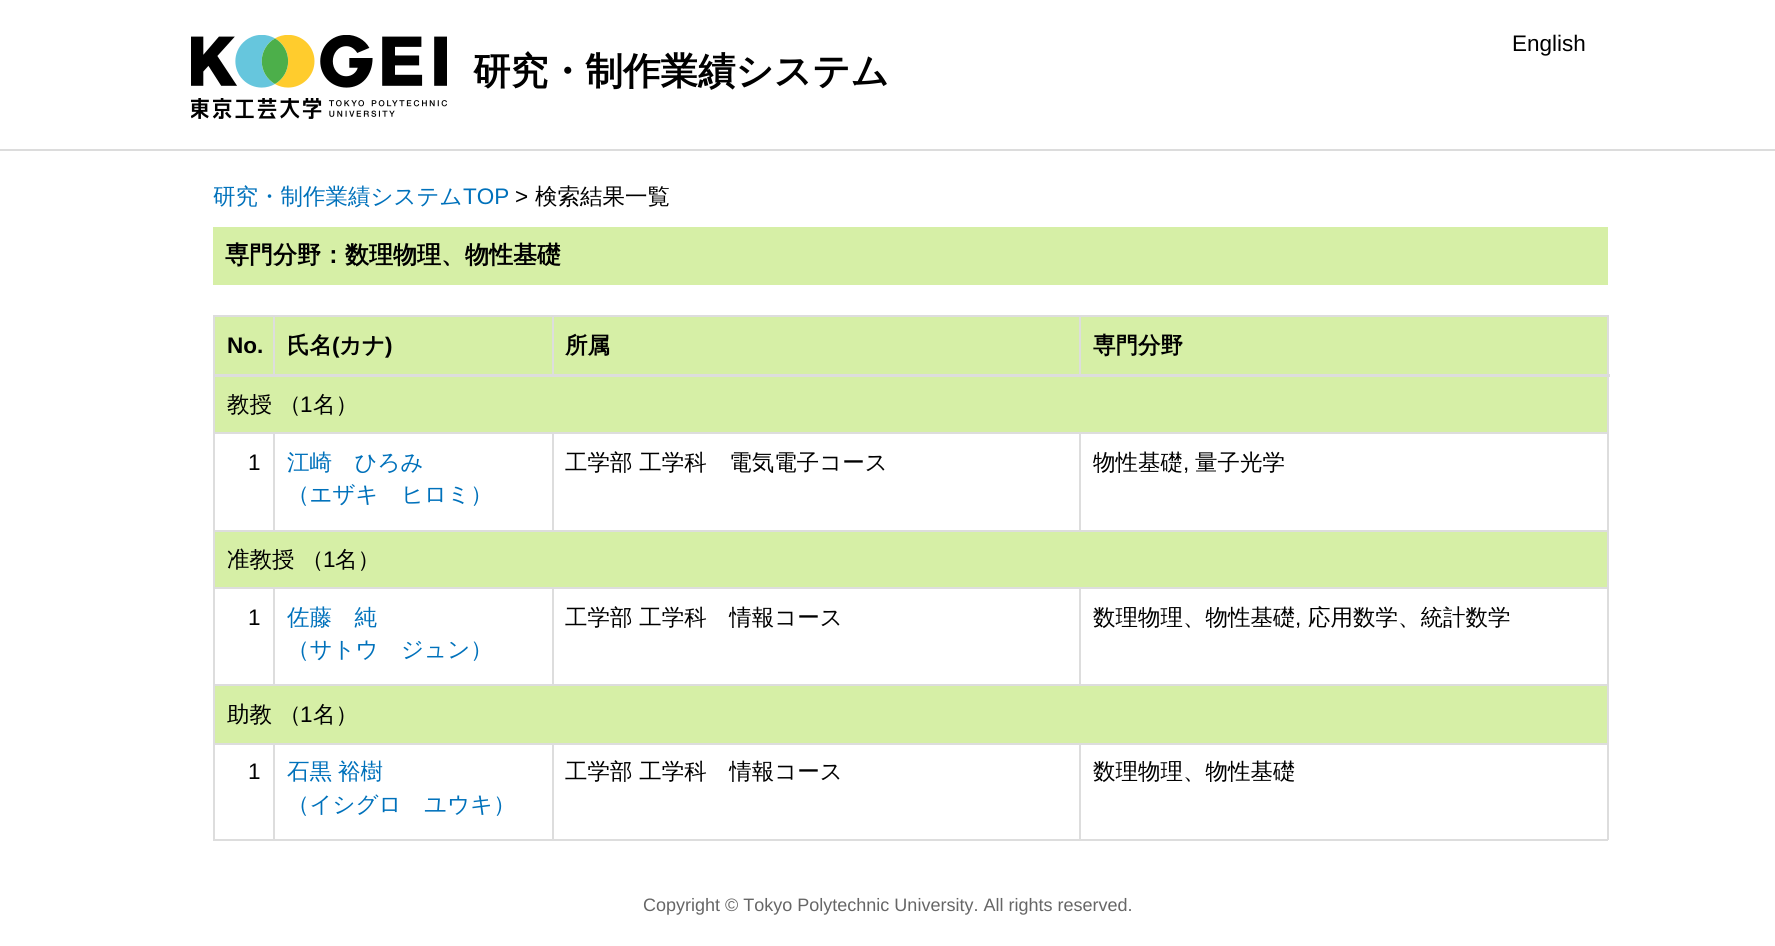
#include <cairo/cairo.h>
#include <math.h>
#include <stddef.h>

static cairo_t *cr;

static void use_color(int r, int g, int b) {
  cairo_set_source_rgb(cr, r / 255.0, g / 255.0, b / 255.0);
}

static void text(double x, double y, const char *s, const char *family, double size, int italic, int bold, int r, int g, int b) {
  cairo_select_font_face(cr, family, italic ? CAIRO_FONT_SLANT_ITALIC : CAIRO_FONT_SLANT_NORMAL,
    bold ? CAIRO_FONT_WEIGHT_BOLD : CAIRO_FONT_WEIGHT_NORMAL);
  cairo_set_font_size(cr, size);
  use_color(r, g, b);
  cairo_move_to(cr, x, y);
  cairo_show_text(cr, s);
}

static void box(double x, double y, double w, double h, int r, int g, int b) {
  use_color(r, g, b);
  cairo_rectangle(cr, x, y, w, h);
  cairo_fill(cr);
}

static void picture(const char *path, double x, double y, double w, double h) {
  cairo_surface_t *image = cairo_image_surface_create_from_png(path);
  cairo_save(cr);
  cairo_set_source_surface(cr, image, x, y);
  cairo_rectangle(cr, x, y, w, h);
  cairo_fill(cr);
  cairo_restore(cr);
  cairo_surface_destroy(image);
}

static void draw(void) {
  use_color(255, 255, 255);
  cairo_paint(cr);
  box(0, 149, 1775, 2, 220, 220, 220);
  picture("img_01.png", 191, 35, 256, 84);
  box(213, 227, 1395, 58, 214, 239, 166);
  box(213, 315, 1395, 2, 221, 221, 221);
  box(1607, 315, 2, 525, 221, 221, 221);
  box(213, 839, 1395, 2, 221, 221, 221);
  box(213, 315, 2, 525, 221, 221, 221);
  box(215, 317, 1392, 57, 214, 239, 166);
  box(273, 315, 2, 60, 221, 221, 221);
  box(552, 315, 2, 60, 221, 221, 221);
  box(1079, 315, 2, 60, 221, 221, 221);
  box(213, 374, 1397, 3, 221, 221, 221);
  box(215, 377, 1392, 55, 214, 239, 166);
  box(1079, 432, 529, 2, 221, 221, 221);
  box(213, 530, 1395, 2, 221, 221, 221);
  box(1079, 432, 2, 99, 221, 221, 221);
  box(552, 432, 528, 2, 221, 221, 221);
  box(552, 432, 2, 99, 221, 221, 221);
  box(273, 432, 281, 2, 221, 221, 221);
  box(273, 432, 2, 99, 221, 221, 221);
  box(213, 432, 62, 2, 221, 221, 221);
  box(215, 532, 1392, 55, 214, 239, 166);
  box(1079, 587, 529, 2, 221, 221, 221);
  box(213, 684, 1395, 2, 221, 221, 221);
  box(1079, 587, 2, 99, 221, 221, 221);
  box(552, 587, 528, 2, 221, 221, 221);
  box(552, 587, 2, 99, 221, 221, 221);
  box(273, 587, 281, 2, 221, 221, 221);
  box(273, 587, 2, 99, 221, 221, 221);
  box(213, 587, 62, 2, 221, 221, 221);
  box(215, 686, 1392, 57, 214, 239, 166);
  box(1079, 743, 529, 2, 221, 221, 221);
  box(1079, 743, 2, 97, 221, 221, 221);
  box(552, 743, 528, 2, 221, 221, 221);
  box(552, 743, 2, 97, 221, 221, 221);
  box(273, 743, 281, 2, 221, 221, 221);
  box(273, 743, 2, 97, 221, 221, 221);
  box(213, 743, 62, 2, 221, 221, 221);
  text(1512, 51, "English", "Liberation Sans", 22.5, 0, 0, 0, 0, 0);
  text(473, 84, "研究・制作業績システム", "WenQuanYi Zen Hei", 37.5, 0, 1, 0, 0, 0);
  text(213, 204, "研究・制作業績システム", "WenQuanYi Zen Hei Medium", 22.5, 0, 0, 0, 113, 187);
  text(463, 204, "TOP", "Liberation Sans", 22.5, 0, 0, 0, 113, 187);
  text(515, 204, ">", "Liberation Sans", 22.5, 0, 0, 0, 0, 0);
  text(535, 204, "検索結果一覧", "WenQuanYi Zen Hei Medium", 22.5, 0, 0, 0, 0, 0);
  text(225, 263, "専門分野：数理物理、物性基礎", "WenQuanYi Zen Hei", 24, 0, 1, 0, 0, 0);
  text(227, 353, "No.", "Liberation Sans", 22.5, 0, 1, 0, 0, 0);
  text(287, 353, "氏名", "WenQuanYi Zen Hei", 22.5, 0, 1, 0, 0, 0);
  text(332, 353, "(", "Liberation Sans", 22.5, 0, 1, 0, 0, 0);
  text(339, 353, "カナ", "WenQuanYi Zen Hei", 22.5, 0, 1, 0, 0, 0);
  text(385, 353, ")", "Liberation Sans", 22.5, 0, 1, 0, 0, 0);
  text(565, 353, "所属", "WenQuanYi Zen Hei", 22.5, 0, 1, 0, 0, 0);
  text(1093, 353, "専門分野", "WenQuanYi Zen Hei", 22.5, 0, 1, 0, 0, 0);
  text(227, 412, "教授 （", "WenQuanYi Zen Hei Medium", 22.5, 0, 0, 0, 0, 0);
  text(300, 412, "1", "Liberation Sans", 22.5, 0, 0, 0, 0, 0);
  text(313, 412, "名）", "WenQuanYi Zen Hei Medium", 22.5, 0, 0, 0, 0, 0);
  text(248, 470, "1", "Liberation Sans", 22.5, 0, 0, 0, 0, 0);
  text(287, 470, "江崎　ひろみ", "WenQuanYi Zen Hei Medium", 22.5, 0, 0, 0, 113, 187);
  text(287, 502, "（エザキ　ヒロミ）", "WenQuanYi Zen Hei Medium", 22.5, 0, 0, 0, 113, 187);
  text(565, 470, "工学部 工学科　電気電子コース", "WenQuanYi Zen Hei Medium", 22.5, 0, 0, 0, 0, 0);
  text(1093, 470, "物性基礎", "WenQuanYi Zen Hei Medium", 22.5, 0, 0, 0, 0, 0);
  text(1183, 470, ",", "Liberation Sans", 22.5, 0, 0, 0, 0, 0);
  text(1195, 470, "量子光学", "WenQuanYi Zen Hei Medium", 22.5, 0, 0, 0, 0, 0);
  text(227, 567, "准教授 （", "WenQuanYi Zen Hei Medium", 22.5, 0, 0, 0, 0, 0);
  text(323, 567, "1", "Liberation Sans", 22.5, 0, 0, 0, 0, 0);
  text(335, 567, "名）", "WenQuanYi Zen Hei Medium", 22.5, 0, 0, 0, 0, 0);
  text(248, 625, "1", "Liberation Sans", 22.5, 0, 0, 0, 0, 0);
  text(287, 625, "佐藤　純", "WenQuanYi Zen Hei Medium", 22.5, 0, 0, 0, 113, 187);
  text(287, 657, "（サトウ　ジュン）", "WenQuanYi Zen Hei Medium", 22.5, 0, 0, 0, 113, 187);
  text(565, 625, "工学部 工学科　情報コース", "WenQuanYi Zen Hei Medium", 22.5, 0, 0, 0, 0, 0);
  text(1093, 625, "数理物理、物性基礎", "WenQuanYi Zen Hei Medium", 22.5, 0, 0, 0, 0, 0);
  text(1295, 625, ",", "Liberation Sans", 22.5, 0, 0, 0, 0, 0);
  text(1308, 625, "応用数学、統計数学", "WenQuanYi Zen Hei Medium", 22.5, 0, 0, 0, 0, 0);
  text(227, 722, "助教 （", "WenQuanYi Zen Hei Medium", 22.5, 0, 0, 0, 0, 0);
  text(300, 722, "1", "Liberation Sans", 22.5, 0, 0, 0, 0, 0);
  text(313, 722, "名）", "WenQuanYi Zen Hei Medium", 22.5, 0, 0, 0, 0, 0);
  text(248, 779, "1", "Liberation Sans", 22.5, 0, 0, 0, 0, 0);
  text(287, 779, "石黒", "WenQuanYi Zen Hei Medium", 22.5, 0, 0, 0, 113, 187);
  text(338, 779, "裕樹", "WenQuanYi Zen Hei Medium", 22.5, 0, 0, 0, 113, 187);
  text(287, 812, "（イシグロ　ユウキ）", "WenQuanYi Zen Hei Medium", 22.5, 0, 0, 0, 113, 187);
  text(565, 779, "工学部 工学科　情報コース", "WenQuanYi Zen Hei Medium", 22.5, 0, 0, 0, 0, 0);
  text(1093, 779, "数理物理、物性基礎", "WenQuanYi Zen Hei Medium", 22.5, 0, 0, 0, 0, 0);
  text(643, 911, "Copyright © Tokyo Polytechnic University. All rights reserved.", "Liberation Sans", 18, 0, 0, 102, 102, 102);
}

int main(void) {
  cairo_surface_t *surface = cairo_image_surface_create(CAIRO_FORMAT_RGB24, 1775, 946);
  cr = cairo_create(surface);
  cairo_font_options_t *options = cairo_font_options_create();
  cairo_font_options_set_hint_metrics(options, CAIRO_HINT_METRICS_OFF);
  cairo_font_options_set_hint_style(options, CAIRO_HINT_STYLE_NONE);
  cairo_set_font_options(cr, options);
  cairo_set_miter_limit(cr, 4);
  draw();
  cairo_surface_write_to_png(surface, "out.png");
  cairo_font_options_destroy(options);
  cairo_destroy(cr);
  cairo_surface_destroy(surface);
  return 0;
}
